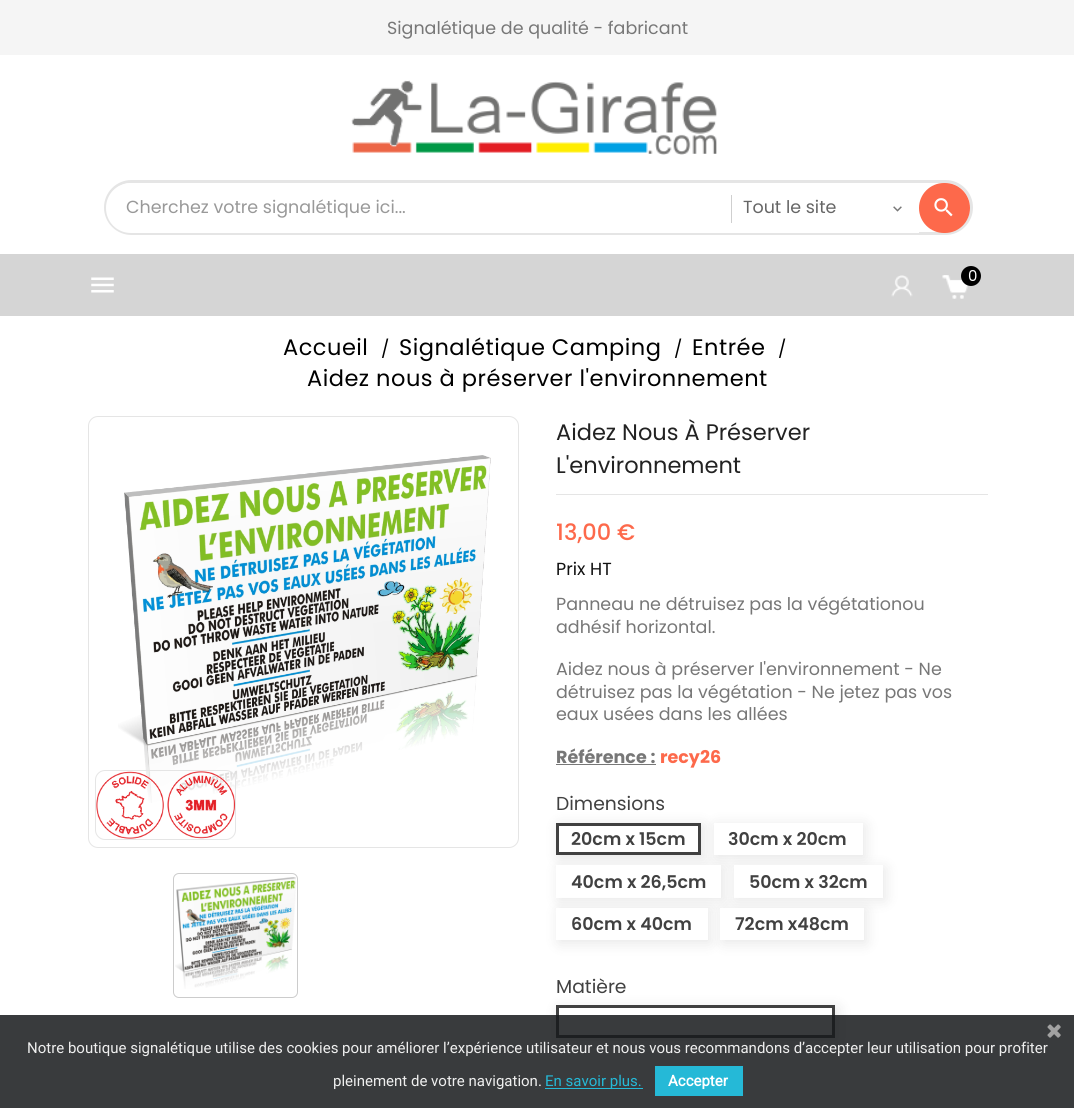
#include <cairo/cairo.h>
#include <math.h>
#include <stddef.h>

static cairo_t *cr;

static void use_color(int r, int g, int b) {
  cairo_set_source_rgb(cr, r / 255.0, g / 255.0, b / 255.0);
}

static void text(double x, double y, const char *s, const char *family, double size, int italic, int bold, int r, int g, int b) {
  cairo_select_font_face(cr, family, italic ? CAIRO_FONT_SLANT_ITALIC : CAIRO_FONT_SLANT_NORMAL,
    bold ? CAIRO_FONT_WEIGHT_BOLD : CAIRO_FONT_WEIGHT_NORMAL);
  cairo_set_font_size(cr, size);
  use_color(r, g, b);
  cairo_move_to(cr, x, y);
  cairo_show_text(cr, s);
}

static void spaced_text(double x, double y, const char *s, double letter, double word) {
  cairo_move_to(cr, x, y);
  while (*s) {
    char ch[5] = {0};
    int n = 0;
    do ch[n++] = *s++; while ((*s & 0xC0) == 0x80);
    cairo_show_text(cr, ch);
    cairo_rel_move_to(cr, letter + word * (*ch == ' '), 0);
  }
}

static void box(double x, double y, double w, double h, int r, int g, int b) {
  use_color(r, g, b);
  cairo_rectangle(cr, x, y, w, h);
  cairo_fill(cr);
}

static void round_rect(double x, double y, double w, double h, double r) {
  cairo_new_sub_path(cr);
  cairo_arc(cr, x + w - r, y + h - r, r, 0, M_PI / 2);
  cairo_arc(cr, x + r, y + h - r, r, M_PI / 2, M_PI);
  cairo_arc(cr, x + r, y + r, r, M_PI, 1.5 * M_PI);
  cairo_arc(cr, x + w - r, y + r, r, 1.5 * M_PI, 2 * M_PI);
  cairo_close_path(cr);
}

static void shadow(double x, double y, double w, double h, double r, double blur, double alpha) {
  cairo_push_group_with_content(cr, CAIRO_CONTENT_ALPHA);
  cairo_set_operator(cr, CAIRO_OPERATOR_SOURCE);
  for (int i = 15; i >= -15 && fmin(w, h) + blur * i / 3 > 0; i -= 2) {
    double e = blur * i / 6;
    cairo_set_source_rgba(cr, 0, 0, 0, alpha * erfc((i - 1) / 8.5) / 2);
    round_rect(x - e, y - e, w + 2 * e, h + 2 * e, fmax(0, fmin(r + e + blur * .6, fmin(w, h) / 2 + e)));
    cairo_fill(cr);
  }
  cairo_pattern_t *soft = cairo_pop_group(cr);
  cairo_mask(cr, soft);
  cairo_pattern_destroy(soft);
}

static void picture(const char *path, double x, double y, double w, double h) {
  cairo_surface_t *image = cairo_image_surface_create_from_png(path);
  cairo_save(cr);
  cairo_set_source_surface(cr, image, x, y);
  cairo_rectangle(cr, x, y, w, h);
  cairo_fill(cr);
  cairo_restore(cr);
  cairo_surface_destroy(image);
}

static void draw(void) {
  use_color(255, 255, 255);
  cairo_paint(cr);
  box(0, 0, 1074, 55, 245, 245, 245);
  picture("img_01.png", 351, 80, 366, 75);
  round_rect(105.5, 181.5, 866, 52, 26);
  use_color(229, 229, 229);
  cairo_set_line_width(cr, 3);
  cairo_stroke(cr);
  use_color(255, 255, 255);
  cairo_new_path(cr);
  cairo_move_to(cr, 131, 183);
  cairo_line_to(cr, 919, 183);
  cairo_line_to(cr, 919, 233);
  cairo_line_to(cr, 131, 233);
  cairo_curve_to(cr, 117, 233, 106, 222, 106, 208);
  cairo_curve_to(cr, 106, 194, 117, 183, 131, 183);
  cairo_close_path(cr);
  cairo_fill(cr);
  box(731, 195, 1, 28, 207, 207, 207);
  picture("img_02.png", 893, 206, 9, 6);
  use_color(253, 105, 75);
  round_rect(919, 183, 51, 50, 25);
  cairo_fill(cr);
  picture("img_03.png", 934, 198, 19, 19);
  box(0, 254, 1074, 62, 213, 213, 213);
  picture("img_04.png", 91, 277, 23, 16);
  picture("img_05.png", 891, 275, 22, 22);
  picture("img_06.png", 942, 275, 27, 24);
  use_color(0, 0, 0);
  cairo_arc(cr, 971, 276, 10, 0, 2 * M_PI);
  cairo_fill(cr);
  round_rect(88.5, 416.5, 430, 431, 9.5);
  use_color(229, 229, 229);
  cairo_set_line_width(cr, 1);
  cairo_stroke(cr);
  picture("img_07.png", 118, 455, 373, 348);
  round_rect(95.5, 770.5, 140, 69, 9.5);
  cairo_stroke(cr);
  picture("img_08.png", 96, 771, 139, 68);
  round_rect(173.5, 873.5, 124, 124, 5.5);
  use_color(204, 204, 204);
  cairo_stroke(cr);
  picture("img_09.png", 175, 877, 121, 112);
  box(556, 494, 432, 1, 229, 229, 229);
  box(556, 764, 100, 1, 119, 119, 119);
  use_color(0, 0, 0);
  shadow(559, 825, 145, 33, 0, 7, 0.1);
  use_color(255, 255, 255);
  cairo_rectangle(cr, 557.5, 824.5, 142, 29);
  cairo_fill_preserve(cr);
  use_color(65, 65, 65);
  cairo_set_line_width(cr, 3);
  cairo_stroke(cr);
  use_color(0, 0, 0);
  shadow(716, 825, 149, 33, 0, 7, 0.1);
  box(714, 823, 149, 32, 255, 255, 255);
  use_color(0, 0, 0);
  shadow(559, 868, 165, 32, 0, 7, 0.1);
  box(556, 865, 165, 33, 255, 255, 255);
  use_color(0, 0, 0);
  shadow(736, 868, 149, 32, 0, 7, 0.1);
  box(734, 865, 149, 33, 255, 255, 255);
  use_color(0, 0, 0);
  shadow(559, 910, 151, 33, 0, 7, 0.1);
  box(556, 908, 152, 32, 255, 255, 255);
  use_color(0, 0, 0);
  shadow(723, 910, 143, 33, 0, 7, 0.1);
  box(720, 908, 144, 32, 255, 255, 255);
  use_color(0, 0, 0);
  shadow(559, 1008, 279, 32, 0, 7, 0.1);
  use_color(255, 255, 255);
  cairo_rectangle(cr, 557.5, 1006.5, 276, 30);
  cairo_fill_preserve(cr);
  use_color(65, 65, 65);
  cairo_stroke(cr);
  cairo_set_source_rgba(cr, 0.09, 0.098, 0.11, 0.85);
  cairo_rectangle(cr, 0, 1015, 1074, 93);
  cairo_fill(cr);
  picture("img_10.png", 1047, 1024, 14, 14);
  box(545, 1088, 98, 1, 37, 185, 215);
  box(655, 1066, 88, 30, 37, 185, 215);
  text(387, 34, "Signalétique de qualité - fabricant", "Poppins", 17.5, 0, 0, 119, 119, 119);
  text(126, 213, "Cherchez votre signalétique ici...", "Poppins", 17.5, 0, 0, 153, 153, 153);
  text(743, 213, "Tout le site", "Poppins", 17.5, 0, 0, 102, 102, 102);
  text(968, 281, "0", "Poppins", 15, 0, 0, 255, 255, 255);
  cairo_set_font_size(cr, 22.5);
  use_color(0, 0, 0);
  spaced_text(283, 355, "Accueil", 0.5, 0);
  text(381, 355, "/", "Poppins", 17.5, 0, 0, 0, 0, 0);
  cairo_set_font_size(cr, 22.5);
  spaced_text(399, 355, "Signalétique Camping", 0.5, 0);
  text(674, 355, "/", "Poppins", 17.5, 0, 0, 0, 0, 0);
  cairo_set_font_size(cr, 22.5);
  spaced_text(692, 355, "Entrée", 0.5, 0);
  text(778, 355, "/", "Poppins", 17.5, 0, 0, 0, 0, 0);
  cairo_set_font_size(cr, 22.5);
  spaced_text(307, 386, "Aidez nous à préserver l'environnement", 0.5, 0);
  text(556, 440, "Aidez Nous À Préserver", "Poppins", 22.5, 0, 0, 34, 34, 34);
  text(556, 473, "L'environnement", "Poppins", 22.5, 0, 0, 34, 34, 34);
  text(556, 540, "13,00 €", "Poppins Medium", 22.5, 0, 0, 253, 105, 75);
  text(556, 575, "Prix HT", "Poppins", 17.5, 0, 0, 17, 17, 17);
  text(556, 610, "Panneau ne détruisez pas la végétationou", "Poppins", 17.5, 0, 0, 119, 119, 119);
  text(556, 633, "adhésif horizontal.", "Poppins", 17.5, 0, 0, 119, 119, 119);
  text(556, 675, "Aidez nous à préserver l'environnement - Ne", "Poppins", 17.5, 0, 0, 119, 119, 119);
  text(556, 698, "détruisez pas la végétation - Ne jetez pas vos", "Poppins", 17.5, 0, 0, 119, 119, 119);
  text(556, 720, "eaux usées dans les allées", "Poppins", 17.5, 0, 0, 119, 119, 119);
  text(556, 763, "Référence :", "Poppins", 17.5, 0, 1, 119, 119, 119);
  text(660, 763, "recy26", "Poppins", 17.5, 0, 1, 253, 105, 75);
  text(556, 810, "Dimensions", "Poppins", 18.75, 0, 0, 65, 65, 65);
  text(571, 845, "20cm x 15cm", "Poppins SemiBold", 17.5, 0, 0, 65, 65, 65);
  text(728, 845, "30cm x 20cm", "Poppins SemiBold", 17.5, 0, 0, 65, 65, 65);
  text(571, 888, "40cm x 26,5cm", "Poppins SemiBold", 17.5, 0, 0, 65, 65, 65);
  text(749, 888, "50cm x 32cm", "Poppins SemiBold", 17.5, 0, 0, 65, 65, 65);
  text(571, 930, "60cm x 40cm", "Poppins SemiBold", 17.5, 0, 0, 65, 65, 65);
  text(735, 930, "72cm x48cm", "Poppins SemiBold", 17.5, 0, 0, 65, 65, 65);
  text(556, 993, "Matière", "Poppins", 18.75, 0, 0, 65, 65, 65);
  text(27, 1053, "Notre boutique signalétique utilise des cookies pour améliorer l’expérience utilisateur et nous vous recommandons d’accepter leur utilisation pour profiter", "Roboto", 15, 0, 0, 239, 239, 239);
  text(333, 1086, "pleinement de votre navigation.", "Roboto", 15, 0, 0, 239, 239, 239);
  text(545, 1086, "En savoir plus.", "Roboto", 15, 0, 0, 37, 185, 215);
  text(668, 1086, "Accepter", "Roboto", 15, 0, 1, 255, 255, 255);
}

int main(void) {
  cairo_surface_t *surface = cairo_image_surface_create(CAIRO_FORMAT_RGB24, 1074, 1108);
  cr = cairo_create(surface);
  cairo_font_options_t *options = cairo_font_options_create();
  cairo_font_options_set_hint_metrics(options, CAIRO_HINT_METRICS_OFF);
  cairo_font_options_set_hint_style(options, CAIRO_HINT_STYLE_NONE);
  cairo_set_font_options(cr, options);
  cairo_set_miter_limit(cr, 4);
  draw();
  cairo_surface_write_to_png(surface, "out.png");
  cairo_font_options_destroy(options);
  cairo_destroy(cr);
  cairo_surface_destroy(surface);
  return 0;
}
